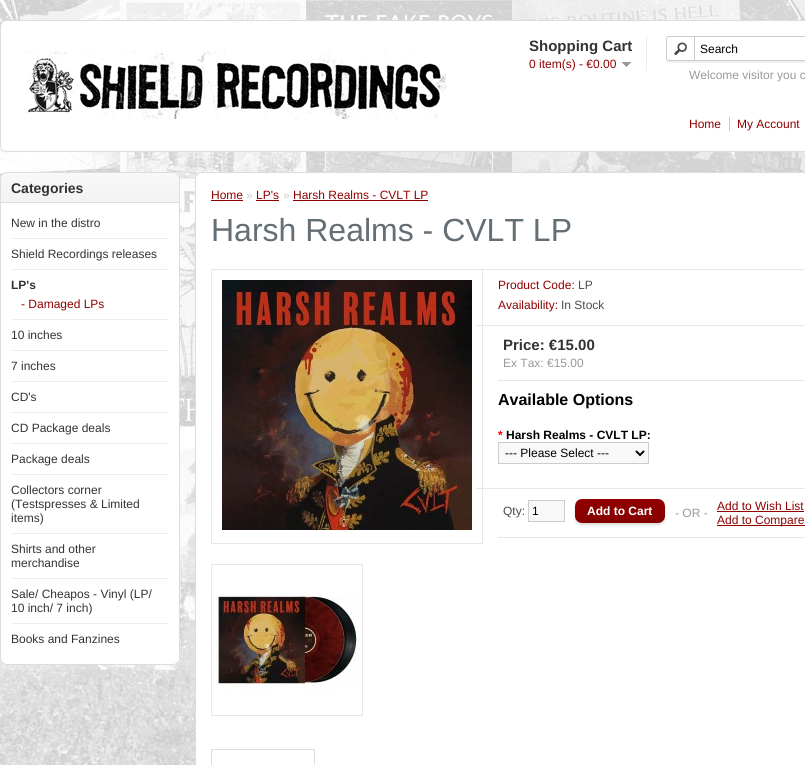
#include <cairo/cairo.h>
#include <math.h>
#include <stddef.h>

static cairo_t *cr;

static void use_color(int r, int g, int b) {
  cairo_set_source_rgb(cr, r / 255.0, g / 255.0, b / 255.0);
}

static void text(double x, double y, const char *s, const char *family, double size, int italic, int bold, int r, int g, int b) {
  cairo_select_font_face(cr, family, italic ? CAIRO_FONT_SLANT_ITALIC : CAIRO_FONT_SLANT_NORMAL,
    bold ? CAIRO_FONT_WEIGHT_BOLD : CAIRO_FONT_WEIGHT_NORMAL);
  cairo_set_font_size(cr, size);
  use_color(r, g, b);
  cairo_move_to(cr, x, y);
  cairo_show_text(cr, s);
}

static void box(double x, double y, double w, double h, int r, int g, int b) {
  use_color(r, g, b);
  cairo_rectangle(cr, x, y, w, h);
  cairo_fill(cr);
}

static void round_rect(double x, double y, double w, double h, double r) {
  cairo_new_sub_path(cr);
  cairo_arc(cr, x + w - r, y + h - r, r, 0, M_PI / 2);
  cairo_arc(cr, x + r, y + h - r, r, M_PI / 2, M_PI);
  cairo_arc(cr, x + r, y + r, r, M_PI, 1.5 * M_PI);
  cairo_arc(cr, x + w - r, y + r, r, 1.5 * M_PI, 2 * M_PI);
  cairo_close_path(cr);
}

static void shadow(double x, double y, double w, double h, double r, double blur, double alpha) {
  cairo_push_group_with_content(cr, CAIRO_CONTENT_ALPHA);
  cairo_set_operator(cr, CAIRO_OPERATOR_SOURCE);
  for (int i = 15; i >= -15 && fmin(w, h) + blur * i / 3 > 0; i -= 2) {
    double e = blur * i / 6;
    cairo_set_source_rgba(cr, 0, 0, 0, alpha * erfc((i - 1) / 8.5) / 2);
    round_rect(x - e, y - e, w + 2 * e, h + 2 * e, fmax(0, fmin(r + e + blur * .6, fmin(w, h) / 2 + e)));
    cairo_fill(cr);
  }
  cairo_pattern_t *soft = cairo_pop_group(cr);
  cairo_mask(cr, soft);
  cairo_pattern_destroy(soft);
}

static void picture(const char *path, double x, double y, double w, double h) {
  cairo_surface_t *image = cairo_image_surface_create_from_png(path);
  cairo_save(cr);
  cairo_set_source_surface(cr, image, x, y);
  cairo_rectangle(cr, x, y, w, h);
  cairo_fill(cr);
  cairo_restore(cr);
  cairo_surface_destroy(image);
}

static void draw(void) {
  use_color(255, 255, 255);
  cairo_paint(cr);
  picture("img_01.png", 0, 0, 805, 765);
  use_color(255, 255, 255);
  round_rect(0.5, 20.5, 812, 131, 6.5);
  cairo_fill_preserve(cr);
  use_color(219, 222, 225);
  cairo_set_line_width(cr, 1);
  cairo_stroke(cr);
  box(646, 36, 1, 35, 238, 238, 238);
  picture("img_02.png", 622, 62, 9, 5);
  use_color(240, 240, 240);
  cairo_new_path(cr);
  cairo_move_to(cr, 666, 58);
  cairo_curve_to(cr, 666, 60, 666, 63, 669, 63);
  cairo_line_to(cr, 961, 63);
  cairo_curve_to(cr, 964, 63, 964, 60, 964, 58);
  cairo_curve_to(cr, 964, 60, 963, 61, 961, 61);
  cairo_line_to(cr, 669, 61);
  cairo_curve_to(cr, 667, 61, 666, 60, 666, 58);
  cairo_close_path(cr);
  cairo_fill(cr);
  round_rect(666.5, 36.5, 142, 24, 2.5);
  use_color(204, 204, 204);
  cairo_stroke(cr);
  picture("img_03.png", 674, 42, 13, 13);
  box(694, 36, 1, 24, 204, 204, 204);
  picture("img_04.png", 26, 51, 420, 68);
  box(729, 117, 1, 14, 204, 204, 204);
  picture("img_05.png", 0, 173, 180, 29);
  cairo_new_path(cr);
  cairo_move_to(cr, 7, 172.5);
  cairo_line_to(cr, 173, 172.5);
  cairo_curve_to(cr, 176.5, 172.5, 179.5, 175.5, 179.5, 179);
  cairo_line_to(cr, 179.5, 202.5);
  cairo_line_to(cr, 0.5, 202.5);
  cairo_line_to(cr, 0.5, 179);
  cairo_curve_to(cr, 0.5, 175.5, 3.5, 172.5, 7, 172.5);
  cairo_close_path(cr);
  use_color(219, 222, 225);
  cairo_stroke(cr);
  use_color(255, 255, 255);
  cairo_new_path(cr);
  cairo_move_to(cr, 0, 203);
  cairo_line_to(cr, 180, 203);
  cairo_line_to(cr, 180, 658);
  cairo_curve_to(cr, 180, 662, 177, 665, 173, 665);
  cairo_line_to(cr, 7, 665);
  cairo_curve_to(cr, 3, 665, 0, 662, 0, 658);
  cairo_close_path(cr);
  cairo_fill(cr);
  use_color(219, 222, 225);
  cairo_set_fill_rule(cr, CAIRO_FILL_RULE_EVEN_ODD);
  cairo_new_path(cr);
  cairo_move_to(cr, 0, 203);
  cairo_line_to(cr, 180, 203);
  cairo_line_to(cr, 180, 658);
  cairo_curve_to(cr, 180, 662, 177, 665, 173, 665);
  cairo_line_to(cr, 7, 665);
  cairo_curve_to(cr, 3, 665, 0, 662, 0, 658);
  cairo_close_path(cr);
  cairo_move_to(cr, 1, 203);
  cairo_line_to(cr, 179, 203);
  cairo_line_to(cr, 179, 658);
  cairo_curve_to(cr, 179, 661, 176, 664, 173, 664);
  cairo_line_to(cr, 7, 664);
  cairo_curve_to(cr, 4, 664, 1, 661, 1, 658);
  cairo_close_path(cr);
  cairo_fill(cr);
  box(11, 238, 158, 1, 238, 238, 238);
  box(11, 269, 158, 1, 238, 238, 238);
  box(11, 319, 158, 1, 238, 238, 238);
  box(11, 350, 158, 1, 238, 238, 238);
  box(11, 381, 158, 1, 238, 238, 238);
  box(11, 412, 158, 1, 238, 238, 238);
  box(11, 443, 158, 1, 238, 238, 238);
  box(11, 474, 158, 1, 238, 238, 238);
  box(11, 533, 158, 1, 238, 238, 238);
  box(11, 578, 158, 1, 238, 238, 238);
  box(11, 623, 158, 1, 238, 238, 238);
  use_color(255, 255, 255);
  round_rect(195.5, 172.5, 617, 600, 6.5);
  cairo_fill_preserve(cr);
  use_color(219, 222, 225);
  cairo_stroke(cr);
  box(211, 200, 32, 1, 144, 0, 0);
  box(256, 200, 23, 1, 144, 0, 0);
  box(293, 200, 135, 1, 144, 0, 0);
  box(476, 269, 329, 1, 231, 231, 231);
  box(476, 325, 329, 1, 231, 231, 231);
  box(476, 488, 329, 1, 231, 231, 231);
  cairo_rectangle(cr, 211.5, 269.5, 271, 274);
  cairo_stroke(cr);
  picture("img_06.png", 222, 280, 250, 250);
  cairo_rectangle(cr, 211.5, 564.5, 151, 151);
  cairo_stroke(cr);
  picture("img_07.png", 212, 594, 150, 99);
  box(498, 380, 307, 1, 231, 231, 231);
  use_color(248, 248, 248);
  cairo_rectangle(cr, 498.5, 442.5, 150, 21);
  cairo_fill_preserve(cr);
  use_color(204, 204, 204);
  cairo_stroke(cr);
  cairo_new_path(cr);
  cairo_move_to(cr, 636, 451);
  cairo_line_to(cr, 640, 455);
  cairo_line_to(cr, 644, 451);
  use_color(0, 0, 0);
  cairo_set_line_width(cr, 2);
  cairo_stroke(cr);
  box(498, 537, 307, 1, 231, 231, 231);
  use_color(248, 248, 248);
  cairo_rectangle(cr, 528.5, 500.5, 36, 21);
  cairo_fill_preserve(cr);
  use_color(204, 204, 204);
  cairo_set_line_width(cr, 1);
  cairo_stroke(cr);
  use_color(221, 221, 221);
  shadow(575, 501, 90, 24, 7, 1, 1);
  picture("img_08.png", 575, 499, 90, 24);
  box(717, 511, 87, 1, 144, 0, 0);
  box(717, 525, 88, 1, 144, 0, 0);
  box(211, 749, 104, 1, 221, 221, 221);
  box(314, 749, 1, 16, 221, 221, 221);
  box(211, 749, 1, 16, 221, 221, 221);
  text(529, 51, "Shopping Cart", "Liberation Sans", 15, 0, 1, 51, 51, 51);
  text(529, 68, "0 item(s) - €0.00", "Liberation Sans", 12, 0, 0, 144, 0, 0);
  text(700, 53, "Search", "Liberation Sans", 12, 0, 0, 0, 0, 0);
  text(689, 79, "Welcome visitor you c", "Liberation Sans", 12, 0, 0, 153, 153, 153);
  text(689, 128, "Home", "Liberation Sans", 12, 0, 0, 144, 0, 0);
  text(737, 128, "My Account", "Liberation Sans", 12, 0, 0, 144, 0, 0);
  text(11, 193, "Categories", "Liberation Sans", 14, 0, 1, 51, 51, 51);
  text(11, 227, "New in the distro", "Liberation Sans", 12, 0, 0, 51, 51, 51);
  text(11, 258, "Shield Recordings releases", "Liberation Sans", 12, 0, 0, 51, 51, 51);
  text(11, 289, "LP's", "Liberation Sans", 12, 0, 1, 51, 51, 51);
  text(21, 308, "- Damaged LPs", "Liberation Sans", 12, 0, 0, 144, 0, 0);
  text(11, 339, "10 inches", "Liberation Sans", 12, 0, 0, 51, 51, 51);
  text(11, 370, "7 inches", "Liberation Sans", 12, 0, 0, 51, 51, 51);
  text(11, 401, "CD's", "Liberation Sans", 12, 0, 0, 51, 51, 51);
  text(11, 432, "CD Package deals", "Liberation Sans", 12, 0, 0, 51, 51, 51);
  text(11, 463, "Package deals", "Liberation Sans", 12, 0, 0, 51, 51, 51);
  text(11, 494, "Collectors corner", "Liberation Sans", 12, 0, 0, 51, 51, 51);
  text(11, 508, "(Testspresses & Limited", "Liberation Sans", 12, 0, 0, 51, 51, 51);
  text(11, 522, "items)", "Liberation Sans", 12, 0, 0, 51, 51, 51);
  text(11, 553, "Shirts and other", "Liberation Sans", 12, 0, 0, 51, 51, 51);
  text(11, 567, "merchandise", "Liberation Sans", 12, 0, 0, 51, 51, 51);
  text(11, 598, "Sale/ Cheapos - Vinyl (LP/", "Liberation Sans", 12, 0, 0, 51, 51, 51);
  text(11, 612, "10 inch/ 7 inch)", "Liberation Sans", 12, 0, 0, 51, 51, 51);
  text(11, 643, "Books and Fanzines", "Liberation Sans", 12, 0, 0, 51, 51, 51);
  text(211, 199, "Home", "Liberation Sans", 12, 0, 0, 144, 0, 0);
  text(246, 199, "»", "Liberation Sans", 12, 0, 0, 204, 204, 204);
  text(256, 199, "LP's", "Liberation Sans", 12, 0, 0, 144, 0, 0);
  text(283, 199, "»", "Liberation Sans", 12, 0, 0, 204, 204, 204);
  text(293, 199, "Harsh Realms - CVLT LP", "Liberation Sans", 12, 0, 0, 144, 0, 0);
  text(211, 241, "Harsh Realms - CVLT LP", "Liberation Sans", 32, 0, 0, 99, 110, 117);
  text(498, 289, "Product Code:", "Liberation Sans", 12, 0, 0, 144, 0, 0);
  text(578, 289, "LP", "Liberation Sans", 12, 0, 0, 77, 77, 77);
  text(498, 309, "Availability:", "Liberation Sans", 12, 0, 0, 144, 0, 0);
  text(561, 309, "In Stock", "Liberation Sans", 12, 0, 0, 77, 77, 77);
  text(503, 350, "Price: €15.00", "Liberation Sans", 15, 0, 1, 51, 51, 51);
  text(503, 367, "Ex Tax: €15.00", "Liberation Sans", 12, 0, 0, 153, 153, 153);
  text(498, 405, "Available Options", "Liberation Sans", 16, 0, 1, 0, 0, 0);
  text(498, 439, "*", "Liberation Sans", 12, 0, 1, 255, 0, 0);
  text(506, 439, "Harsh Realms - CVLT LP:", "Liberation Sans", 12, 0, 1, 0, 0, 0);
  text(505, 457, "--- Please Select ---", "Liberation Sans", 12, 0, 0, 0, 0, 0);
  text(503, 515, "Qty:", "Liberation Sans", 12, 0, 0, 77, 77, 77);
  text(532, 515, "1", "Liberation Sans", 12, 0, 0, 0, 0, 0);
  text(587, 515, "Add to Cart", "Liberation Sans", 12, 0, 1, 255, 255, 255);
  text(675, 517, "- OR -", "Liberation Sans", 12, 0, 0, 153, 153, 153);
  text(717, 510, "Add to Wish List", "Liberation Sans", 12, 0, 0, 144, 0, 0);
  text(717, 524, "Add to Compare", "Liberation Sans", 12, 0, 0, 144, 0, 0);
}

int main(void) {
  cairo_surface_t *surface = cairo_image_surface_create(CAIRO_FORMAT_RGB24, 805, 765);
  cr = cairo_create(surface);
  cairo_font_options_t *options = cairo_font_options_create();
  cairo_font_options_set_hint_metrics(options, CAIRO_HINT_METRICS_OFF);
  cairo_font_options_set_hint_style(options, CAIRO_HINT_STYLE_NONE);
  cairo_set_font_options(cr, options);
  cairo_set_miter_limit(cr, 4);
  draw();
  cairo_surface_write_to_png(surface, "out.png");
  cairo_font_options_destroy(options);
  cairo_destroy(cr);
  cairo_surface_destroy(surface);
  return 0;
}
